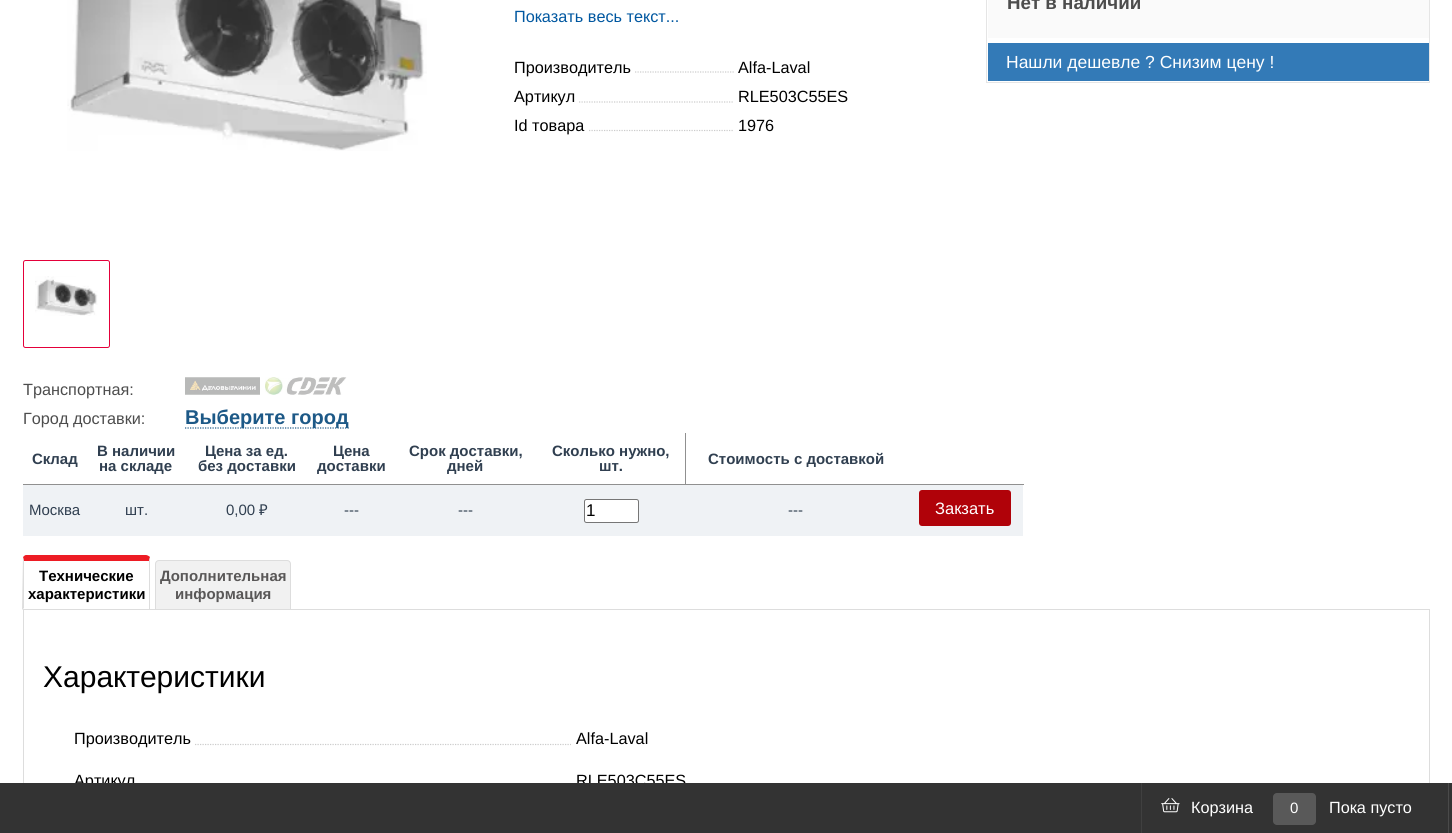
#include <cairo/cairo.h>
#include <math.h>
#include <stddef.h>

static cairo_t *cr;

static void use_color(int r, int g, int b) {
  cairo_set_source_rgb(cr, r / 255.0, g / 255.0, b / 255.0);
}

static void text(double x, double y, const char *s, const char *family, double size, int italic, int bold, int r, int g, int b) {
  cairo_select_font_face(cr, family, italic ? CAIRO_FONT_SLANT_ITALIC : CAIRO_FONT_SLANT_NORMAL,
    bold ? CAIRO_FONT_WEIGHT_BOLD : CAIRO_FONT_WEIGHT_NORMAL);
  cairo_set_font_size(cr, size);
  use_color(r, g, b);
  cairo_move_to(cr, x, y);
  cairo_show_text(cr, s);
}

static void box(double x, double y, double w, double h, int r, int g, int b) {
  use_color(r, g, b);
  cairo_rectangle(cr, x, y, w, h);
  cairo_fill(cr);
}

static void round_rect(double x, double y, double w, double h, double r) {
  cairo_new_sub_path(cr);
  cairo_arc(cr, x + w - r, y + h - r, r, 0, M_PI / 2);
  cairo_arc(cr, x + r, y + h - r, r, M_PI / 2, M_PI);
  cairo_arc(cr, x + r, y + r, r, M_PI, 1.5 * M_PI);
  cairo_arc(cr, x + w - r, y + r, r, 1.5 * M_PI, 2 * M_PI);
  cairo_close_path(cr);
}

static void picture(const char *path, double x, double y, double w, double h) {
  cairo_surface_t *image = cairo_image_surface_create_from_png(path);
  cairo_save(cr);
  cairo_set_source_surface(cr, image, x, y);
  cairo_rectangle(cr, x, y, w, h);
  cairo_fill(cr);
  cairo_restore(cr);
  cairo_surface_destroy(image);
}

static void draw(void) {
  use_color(255, 255, 255);
  cairo_paint(cr);
  picture("img_01.png", 67, 0, 360, 151);
  round_rect(23.5, 260.5, 86, 87, 2);
  use_color(228, 0, 58);
  cairo_set_line_width(cr, 1);
  cairo_stroke(cr);
  picture("img_02.png", 35, 276, 63, 40);
  cairo_save(cr);
  cairo_rectangle(cr, 514, 53, 220, 30);
  cairo_clip(cr);
  cairo_new_path(cr);
  cairo_move_to(cr, 635, 72);
  cairo_line_to(cr, 855, 72);
  use_color(204, 204, 204);
  cairo_set_line_width(cr, 1.2);
  cairo_set_dash(cr, (double[]){1.25, 1.25}, 2, 0);
  cairo_stroke(cr);
  cairo_restore(cr);
  cairo_save(cr);
  cairo_rectangle(cr, 514, 83, 220, 28);
  cairo_clip(cr);
  cairo_new_path(cr);
  cairo_move_to(cr, 579, 102);
  cairo_line_to(cr, 799, 102);
  use_color(204, 204, 204);
  cairo_set_line_width(cr, 1.2);
  cairo_set_dash(cr, (double[]){1.25, 1.25}, 2, 0);
  cairo_stroke(cr);
  cairo_restore(cr);
  cairo_save(cr);
  cairo_rectangle(cr, 514, 111, 220, 29);
  cairo_clip(cr);
  cairo_new_path(cr);
  cairo_move_to(cr, 589, 130.5);
  cairo_line_to(cr, 807.5, 130.5);
  use_color(204, 204, 204);
  cairo_set_line_width(cr, 1.2);
  cairo_set_dash(cr, (double[]){1.25, 1.25}, 2, 0);
  cairo_stroke(cr);
  cairo_restore(cr);
  cairo_rectangle(cr, 986.5, -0.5, 443, 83);
  use_color(229, 229, 229);
  cairo_stroke(cr);
  box(988, 0, 441, 38, 250, 250, 250);
  box(988, 43, 441, 38, 51, 122, 183);
  picture("img_03.png", 185, 377, 75, 18);
  picture("img_04.png", 265, 377, 82, 18);
  cairo_new_path(cr);
  cairo_move_to(cr, 185, 428);
  cairo_line_to(cr, 349, 428);
  use_color(29, 89, 135);
  cairo_set_line_width(cr, 1.2);
  cairo_set_dash(cr, (double[]){1.25, 1.25}, 2, 0);
  cairo_stroke(cr);
  box(685, 484, 339, 1, 144, 144, 144);
  box(685, 433, 1, 52, 144, 144, 144);
  box(23, 484, 663, 1, 144, 144, 144);
  box(23, 485, 1000, 51, 239, 242, 245);
  use_color(255, 255, 255);
  round_rect(584.5, 499.5, 54, 23, 2);
  cairo_fill_preserve(cr);
  use_color(118, 118, 118);
  cairo_set_line_width(cr, 1);
  cairo_set_dash(cr, NULL, 0, 0);
  cairo_stroke(cr);
  use_color(176, 2, 9);
  round_rect(919, 490, 92, 36, 3);
  cairo_fill(cr);
  use_color(237, 28, 36);
  cairo_new_path(cr);
  cairo_move_to(cr, 26, 555);
  cairo_curve_to(cr, 25, 555, 24, 556, 23, 557);
  cairo_line_to(cr, 24, 562);
  cairo_line_to(cr, 24, 561);
  cairo_line_to(cr, 149, 561);
  cairo_line_to(cr, 150, 557);
  cairo_curve_to(cr, 149, 556, 147, 555, 146, 555);
  cairo_close_path(cr);
  cairo_fill(cr);
  use_color(221, 221, 221);
  cairo_new_path(cr);
  cairo_move_to(cr, 150, 610);
  cairo_line_to(cr, 150, 559);
  cairo_line_to(cr, 150, 557);
  cairo_line_to(cr, 149, 561);
  cairo_line_to(cr, 149, 609);
  cairo_close_path(cr);
  cairo_fill(cr);
  cairo_new_path(cr);
  cairo_move_to(cr, 22, 610);
  cairo_line_to(cr, 23, 557);
  cairo_line_to(cr, 24, 562);
  cairo_line_to(cr, 24, 608);
  cairo_close_path(cr);
  cairo_fill(cr);
  use_color(241, 241, 241);
  cairo_new_path(cr);
  cairo_move_to(cr, 159, 560.5);
  cairo_line_to(cr, 287, 560.5);
  cairo_curve_to(cr, 289, 560.5, 290.5, 562, 290.5, 564);
  cairo_line_to(cr, 290.5, 609.5);
  cairo_line_to(cr, 155.5, 609.5);
  cairo_line_to(cr, 155.5, 564);
  cairo_curve_to(cr, 155.5, 562, 157, 560.5, 159, 560.5);
  cairo_close_path(cr);
  cairo_fill_preserve(cr);
  use_color(221, 221, 221);
  cairo_stroke(cr);
  cairo_rectangle(cr, 23.5, 609.5, 1406, 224);
  cairo_stroke(cr);
  cairo_save(cr);
  cairo_rectangle(cr, 74, 725, 497, 29);
  cairo_clip(cr);
  cairo_new_path(cr);
  cairo_move_to(cr, 195, 744.5);
  cairo_line_to(cr, 692.5, 744.5);
  use_color(204, 204, 204);
  cairo_set_line_width(cr, 1.2);
  cairo_set_dash(cr, (double[]){1.25, 1.25}, 2, 0);
  cairo_stroke(cr);
  cairo_restore(cr);
  text(514, 22, "Показать весь текст...", "Liberation Sans", 16.25, 0, 0, 0, 87, 160);
  text(514, 73, "Производитель", "Liberation Sans", 16.25, 0, 0, 0, 0, 0);
  text(738, 73, "Alfa-Laval", "Liberation Sans", 16.25, 0, 0, 0, 0, 0);
  text(514, 102, "Артикул", "Liberation Sans", 16.25, 0, 0, 0, 0, 0);
  text(738, 102, "RLE503C55ES", "Liberation Sans", 16.25, 0, 0, 0, 0, 0);
  text(514, 131, "Id товара", "Liberation Sans", 16.25, 0, 0, 0, 0, 0);
  text(738, 131, "1976", "Liberation Sans", 16.25, 0, 0, 0, 0, 0);
  text(1007, 9, "Нет в наличии", "Liberation Sans", 18.75, 0, 1, 77, 77, 77);
  text(1006, 68, "Нашли дешевле ? Снизим цену !", "Liberation Sans", 17.5, 0, 0, 255, 255, 255);
  text(23, 395, "Транспортная:", "Liberation Sans", 16.25, 0, 0, 77, 77, 77);
  text(23, 424, "Город доставки:", "Liberation Sans", 16.25, 0, 0, 77, 77, 77);
  text(185, 424, "Выберите город", "Liberation Sans", 20, 0, 1, 29, 89, 135);
  text(32, 464, "Склад", "Liberation Sans", 15, 0, 1, 48, 63, 80);
  text(97, 456, "В наличии", "Liberation Sans", 15, 0, 1, 48, 63, 80);
  text(99, 471, "на складе", "Liberation Sans", 15, 0, 1, 48, 63, 80);
  text(205, 456, "Цена за ед.", "Liberation Sans", 15, 0, 1, 48, 63, 80);
  text(198, 471, "без доставки", "Liberation Sans", 15, 0, 1, 48, 63, 80);
  text(333, 456, "Цена", "Liberation Sans", 15, 0, 1, 48, 63, 80);
  text(317, 471, "доставки", "Liberation Sans", 15, 0, 1, 48, 63, 80);
  text(409, 456, "Срок доставки,", "Liberation Sans", 15, 0, 1, 48, 63, 80);
  text(447, 471, "дней", "Liberation Sans", 15, 0, 1, 48, 63, 80);
  text(552, 456, "Сколько нужно,", "Liberation Sans", 15, 0, 1, 48, 63, 80);
  text(599, 471, "шт.", "Liberation Sans", 15, 0, 1, 48, 63, 80);
  text(708, 464, "Стоимость с доставкой", "Liberation Sans", 15, 0, 1, 48, 63, 80);
  text(29, 515, "Москва", "Liberation Sans", 15, 0, 0, 48, 63, 80);
  text(125, 515, "шт.", "Liberation Sans", 15, 0, 0, 48, 63, 80);
  text(226, 515, "0,00", "Liberation Sans", 15, 0, 0, 48, 63, 80);
  text(259, 515, "₽", "Noto Sans", 15, 0, 0, 48, 63, 80);
  text(344, 515, "---", "Liberation Sans", 15, 0, 0, 48, 63, 80);
  text(458, 515, "---", "Liberation Sans", 15, 0, 0, 48, 63, 80);
  text(586, 516, "1", "Liberation Sans", 17, 0, 0, 0, 0, 0);
  text(788, 515, "---", "Liberation Sans", 15, 0, 0, 48, 63, 80);
  text(935, 514, "Закзать", "Liberation Sans", 16.5, 0, 0, 255, 255, 255);
  text(39, 581, "Технические", "Liberation Sans", 15, 0, 1, 0, 0, 0);
  text(28, 599, "характеристики", "Liberation Sans", 15, 0, 1, 0, 0, 0);
  text(160, 581, "Дополнительная", "Liberation Sans", 15, 0, 1, 89, 87, 87);
  text(175, 599, "информация", "Liberation Sans", 15, 0, 1, 89, 87, 87);
  text(43, 687, "Характеристики", "Liberation Sans", 30, 0, 0, 0, 0, 0);
  text(74, 744, "Производитель", "Liberation Sans", 16.25, 0, 0, 0, 0, 0);
  text(576, 744, "Alfa-Laval", "Liberation Sans", 16.25, 0, 0, 0, 0, 0);
  text(74, 786, "Артикул", "Liberation Sans", 16.25, 0, 0, 0, 0, 0);
  text(576, 786, "RLE503C55ES", "Liberation Sans", 16.25, 0, 0, 0, 0, 0);
  box(0, 783, 1452, 50, 51, 51, 51);
  box(1448, 783, 1, 50, 74, 74, 74);
  box(1141, 783, 1, 50, 64, 64, 64);
  picture("img_05.png", 1161, 798, 19, 15);
  text(1191, 813, "Корзина", "Liberation Sans", 16.25, 0, 0, 255, 255, 255);
  use_color(89, 89, 89);
  round_rect(1273, 793, 43, 32, 4);
  cairo_fill(cr);
  text(1290, 813, "0", "Liberation Sans", 15, 0, 0, 255, 255, 255);
  text(1329, 813, "Пока пусто", "Liberation Sans", 16.25, 0, 0, 255, 255, 255);
}

int main(void) {
  cairo_surface_t *surface = cairo_image_surface_create(CAIRO_FORMAT_RGB24, 1452, 833);
  cr = cairo_create(surface);
  cairo_font_options_t *options = cairo_font_options_create();
  cairo_font_options_set_hint_metrics(options, CAIRO_HINT_METRICS_OFF);
  cairo_font_options_set_hint_style(options, CAIRO_HINT_STYLE_NONE);
  cairo_set_font_options(cr, options);
  cairo_set_miter_limit(cr, 4);
  draw();
  cairo_surface_write_to_png(surface, "out.png");
  cairo_font_options_destroy(options);
  cairo_destroy(cr);
  cairo_surface_destroy(surface);
  return 0;
}
